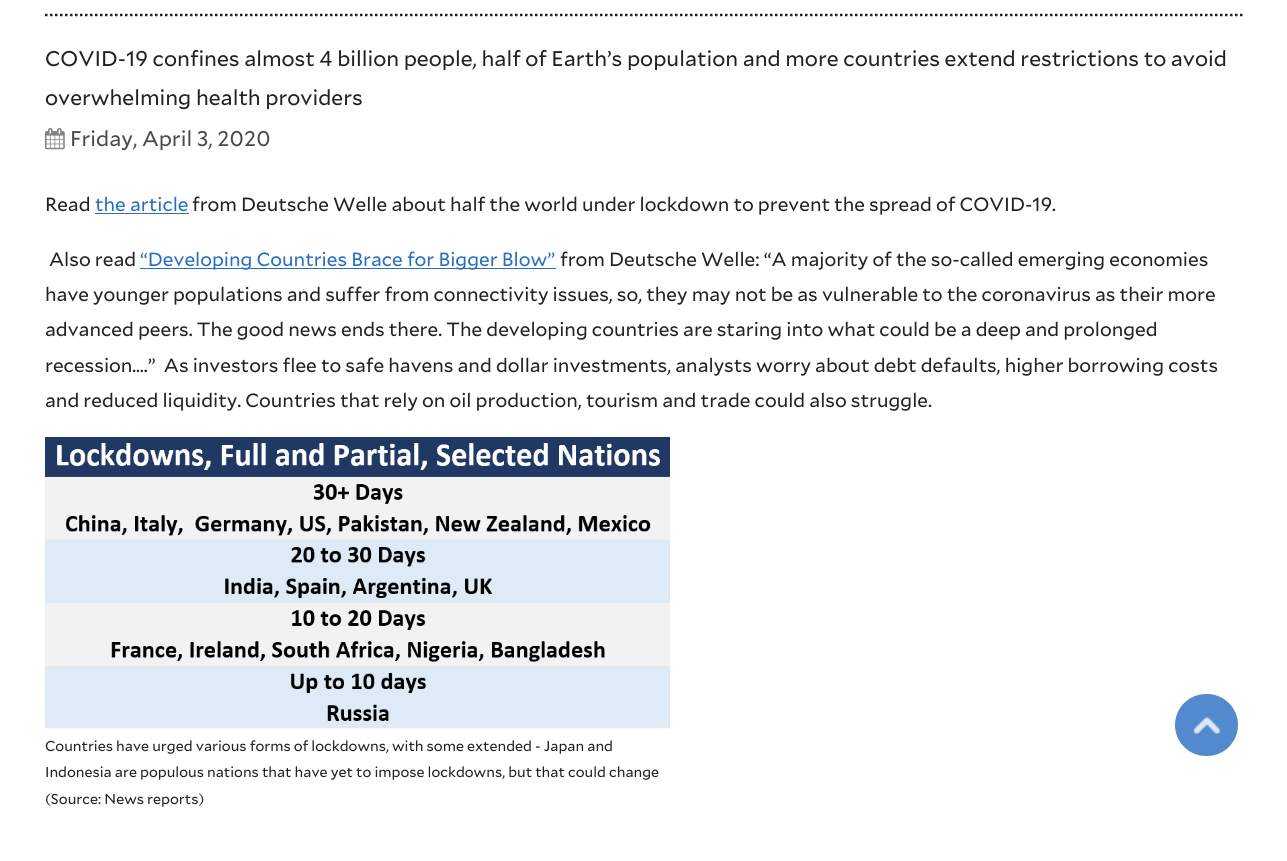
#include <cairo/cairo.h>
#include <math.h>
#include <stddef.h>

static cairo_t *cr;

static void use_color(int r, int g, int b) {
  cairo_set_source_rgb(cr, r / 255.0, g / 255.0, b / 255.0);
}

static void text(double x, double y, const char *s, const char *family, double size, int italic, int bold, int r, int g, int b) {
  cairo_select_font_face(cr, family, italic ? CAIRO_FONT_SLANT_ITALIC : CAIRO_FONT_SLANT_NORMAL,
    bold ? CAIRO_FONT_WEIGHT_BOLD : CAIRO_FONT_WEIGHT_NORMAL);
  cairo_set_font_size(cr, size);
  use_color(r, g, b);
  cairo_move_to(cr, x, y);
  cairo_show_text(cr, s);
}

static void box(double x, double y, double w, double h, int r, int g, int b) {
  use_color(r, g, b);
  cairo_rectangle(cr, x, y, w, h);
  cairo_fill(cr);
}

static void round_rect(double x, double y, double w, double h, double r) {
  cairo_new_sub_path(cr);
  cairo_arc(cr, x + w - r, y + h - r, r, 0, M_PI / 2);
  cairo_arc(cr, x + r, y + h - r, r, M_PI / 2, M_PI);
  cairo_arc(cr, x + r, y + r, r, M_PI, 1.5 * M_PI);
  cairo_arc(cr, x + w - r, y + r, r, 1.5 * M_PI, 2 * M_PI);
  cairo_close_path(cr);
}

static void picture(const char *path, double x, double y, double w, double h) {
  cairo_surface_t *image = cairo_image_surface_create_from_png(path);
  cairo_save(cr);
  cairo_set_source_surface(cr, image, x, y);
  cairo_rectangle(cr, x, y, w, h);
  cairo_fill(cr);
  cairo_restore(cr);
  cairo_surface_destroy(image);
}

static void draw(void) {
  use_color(255, 255, 255);
  cairo_paint(cr);
  cairo_new_path(cr);
  cairo_move_to(cr, 45, 15);
  cairo_line_to(cr, 1242.5, 15);
  use_color(34, 34, 34);
  cairo_set_line_width(cr, 2.5);
  cairo_set_dash(cr, (double[]){2.5, 2.5}, 2, 0);
  cairo_stroke(cr);
  picture("img_01.png", 45, 128, 20, 22);
  box(95, 213, 94, 1, 40, 109, 192);
  box(140, 268, 416, 1, 40, 109, 192);
  picture("img_02.png", 45, 437, 625, 292);
  use_color(83, 138, 205);
  round_rect(1175, 694, 63, 62, 31);
  cairo_fill(cr);
  picture("img_03.png", 1193, 716, 27, 18);
  text(45, 66, "COVID-19 confines almost 4 billion people, half of Earth’s population and more countries extend restrictions to avoid", "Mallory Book", 21.25, 0, 0, 34, 34, 34);
  text(45, 105, "overwhelming health providers", "Mallory Book", 21.25, 0, 0, 34, 34, 34);
  text(70, 146, "Friday, April 3, 2020", "Mallory Book", 21.25, 0, 0, 74, 74, 74);
  text(45, 211, "Read", "Mallory Book", 19.12, 0, 0, 34, 34, 34);
  text(95, 211, "the article", "Mallory Book", 19.12, 0, 0, 40, 109, 192);
  text(192, 211, "from Deutsche Welle about half the world under lockdown to prevent the spread of COVID-19.", "Mallory Book", 19.12, 0, 0, 34, 34, 34);
  text(49, 266, "Also read", "Mallory Book", 19.12, 0, 0, 34, 34, 34);
  text(140, 266, "“Developing Countries Brace for Bigger Blow”", "Mallory Book", 19.12, 0, 0, 40, 109, 192);
  text(560, 266, "from Deutsche Welle: “A majority of the so-called emerging economies", "Mallory Book", 19.12, 0, 0, 34, 34, 34);
  text(45, 301, "have younger populations and suffer from connectivity issues, so, they may not be as vulnerable to the coronavirus as their more", "Mallory Book", 19.12, 0, 0, 34, 34, 34);
  text(45, 336, "advanced peers. The good news ends there. The developing countries are staring into what could be a deep and prolonged", "Mallory Book", 19.12, 0, 0, 34, 34, 34);
  text(45, 372, "recession….”  As investors flee to safe havens and dollar investments, analysts worry about debt defaults, higher borrowing costs", "Mallory Book", 19.12, 0, 0, 34, 34, 34);
  text(45, 407, "and reduced liquidity. Countries that rely on oil production, tourism and trade could also struggle.", "Mallory Book", 19.12, 0, 0, 34, 34, 34);
  text(45, 751, "Countries have urged various forms of lockdowns, with some extended - Japan and", "Mallory Book", 14.35, 0, 0, 34, 34, 34);
  text(45, 777, "Indonesia are populous nations that have yet to impose lockdowns, but that could change", "Mallory Book", 14.35, 0, 0, 34, 34, 34);
  text(45, 804, "(Source: News reports)", "Mallory Book", 14.35, 0, 0, 34, 34, 34);
}

int main(void) {
  cairo_surface_t *surface = cairo_image_surface_create(CAIRO_FORMAT_RGB24, 1287, 861);
  cr = cairo_create(surface);
  cairo_font_options_t *options = cairo_font_options_create();
  cairo_font_options_set_hint_metrics(options, CAIRO_HINT_METRICS_OFF);
  cairo_font_options_set_hint_style(options, CAIRO_HINT_STYLE_NONE);
  cairo_set_font_options(cr, options);
  cairo_set_miter_limit(cr, 4);
  draw();
  cairo_surface_write_to_png(surface, "out.png");
  cairo_font_options_destroy(options);
  cairo_destroy(cr);
  cairo_surface_destroy(surface);
  return 0;
}
